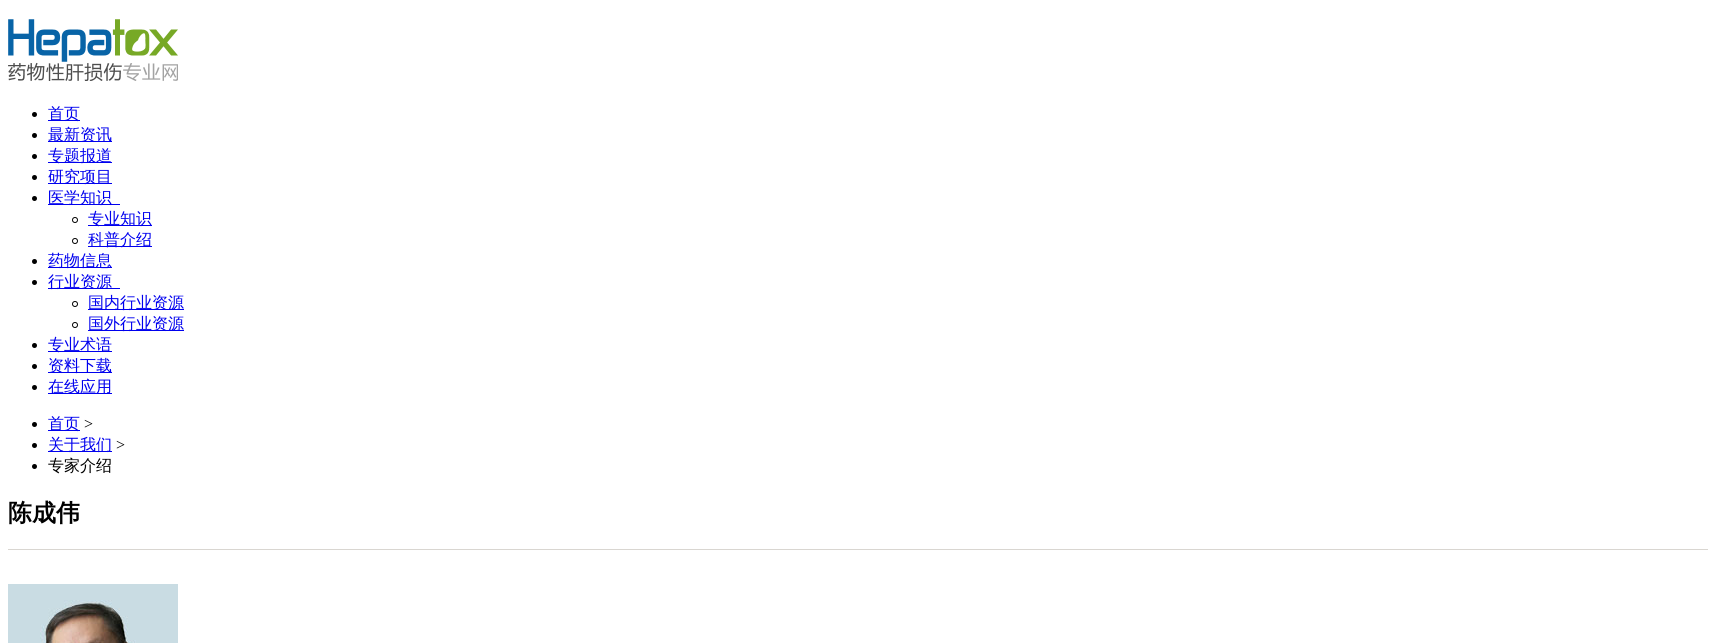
#include <cairo/cairo.h>
#include <math.h>
#include <stddef.h>

static cairo_t *cr;

static void use_color(int r, int g, int b) {
  cairo_set_source_rgb(cr, r / 255.0, g / 255.0, b / 255.0);
}

static void text(double x, double y, const char *s, const char *family, double size, int italic, int bold, int r, int g, int b) {
  cairo_select_font_face(cr, family, italic ? CAIRO_FONT_SLANT_ITALIC : CAIRO_FONT_SLANT_NORMAL,
    bold ? CAIRO_FONT_WEIGHT_BOLD : CAIRO_FONT_WEIGHT_NORMAL);
  cairo_set_font_size(cr, size);
  use_color(r, g, b);
  cairo_move_to(cr, x, y);
  cairo_show_text(cr, s);
}

static void box(double x, double y, double w, double h, int r, int g, int b) {
  use_color(r, g, b);
  cairo_rectangle(cr, x, y, w, h);
  cairo_fill(cr);
}

static void picture(const char *path, double x, double y, double w, double h) {
  cairo_surface_t *image = cairo_image_surface_create_from_png(path);
  cairo_save(cr);
  cairo_set_source_surface(cr, image, x, y);
  cairo_rectangle(cr, x, y, w, h);
  cairo_fill(cr);
  cairo_restore(cr);
  cairo_surface_destroy(image);
}

static void draw(void) {
  use_color(255, 255, 255);
  cairo_paint(cr);
  picture("img_01.png", 8, 19, 170, 62);
  use_color(0, 0, 0);
  cairo_arc(cr, 34.5, 114.5, 2.5, 0, 2 * M_PI);
  cairo_fill(cr);
  box(48, 120, 32, 1, 0, 0, 238);
  use_color(0, 0, 0);
  cairo_arc(cr, 34.5, 135.5, 2.5, 0, 2 * M_PI);
  cairo_fill(cr);
  box(48, 141, 64, 1, 0, 0, 238);
  use_color(0, 0, 0);
  cairo_arc(cr, 34.5, 156.5, 2.5, 0, 2 * M_PI);
  cairo_fill(cr);
  box(48, 162, 64, 1, 0, 0, 238);
  use_color(0, 0, 0);
  cairo_arc(cr, 34.5, 177.5, 2.5, 0, 2 * M_PI);
  cairo_fill(cr);
  box(48, 183, 64, 1, 0, 0, 238);
  use_color(0, 0, 0);
  cairo_arc(cr, 34.5, 198.5, 2.5, 0, 2 * M_PI);
  cairo_fill(cr);
  box(48, 204, 72, 1, 0, 0, 238);
  cairo_arc(cr, 75, 220, 2.5, 0, 2 * M_PI);
  use_color(0, 0, 0);
  cairo_set_line_width(cr, 1);
  cairo_stroke(cr);
  box(88, 225, 64, 1, 0, 0, 238);
  cairo_arc(cr, 75, 241, 2.5, 0, 2 * M_PI);
  use_color(0, 0, 0);
  cairo_stroke(cr);
  box(88, 246, 64, 1, 0, 0, 238);
  use_color(0, 0, 0);
  cairo_arc(cr, 34.5, 261.5, 2.5, 0, 2 * M_PI);
  cairo_fill(cr);
  box(48, 267, 64, 1, 0, 0, 238);
  use_color(0, 0, 0);
  cairo_arc(cr, 34.5, 282.5, 2.5, 0, 2 * M_PI);
  cairo_fill(cr);
  box(48, 288, 72, 1, 0, 0, 238);
  cairo_arc(cr, 75, 304, 2.5, 0, 2 * M_PI);
  use_color(0, 0, 0);
  cairo_stroke(cr);
  box(88, 309, 96, 1, 0, 0, 238);
  cairo_arc(cr, 75, 325, 2.5, 0, 2 * M_PI);
  use_color(0, 0, 0);
  cairo_stroke(cr);
  box(88, 330, 96, 1, 0, 0, 238);
  use_color(0, 0, 0);
  cairo_arc(cr, 34.5, 345.5, 2.5, 0, 2 * M_PI);
  cairo_fill(cr);
  box(48, 351, 64, 1, 0, 0, 238);
  use_color(0, 0, 0);
  cairo_arc(cr, 34.5, 366.5, 2.5, 0, 2 * M_PI);
  cairo_fill(cr);
  box(48, 372, 64, 1, 0, 0, 238);
  use_color(0, 0, 0);
  cairo_arc(cr, 34.5, 387.5, 2.5, 0, 2 * M_PI);
  cairo_fill(cr);
  box(48, 393, 64, 1, 0, 0, 238);
  use_color(0, 0, 0);
  cairo_arc(cr, 34.5, 424.5, 2.5, 0, 2 * M_PI);
  cairo_fill(cr);
  box(48, 430, 32, 1, 0, 0, 238);
  use_color(0, 0, 0);
  cairo_arc(cr, 34.5, 445.5, 2.5, 0, 2 * M_PI);
  cairo_fill(cr);
  box(48, 451, 64, 1, 0, 0, 238);
  use_color(0, 0, 0);
  cairo_arc(cr, 34.5, 466.5, 2.5, 0, 2 * M_PI);
  cairo_fill(cr);
  box(8, 549, 1700, 1, 217, 214, 209);
  picture("img_02.png", 8, 584, 170, 59);
  text(48, 119, "首页", "WenQuanYi Zen Hei Medium", 16, 0, 0, 0, 0, 238);
  text(48, 140, "最新资讯", "WenQuanYi Zen Hei Medium", 16, 0, 0, 0, 0, 238);
  text(48, 161, "专题报道", "WenQuanYi Zen Hei Medium", 16, 0, 0, 0, 0, 238);
  text(48, 182, "研究项目", "WenQuanYi Zen Hei Medium", 16, 0, 0, 0, 0, 238);
  text(48, 203, "医学知识", "WenQuanYi Zen Hei Medium", 16, 0, 0, 0, 0, 238);
  text(88, 224, "专业知识", "WenQuanYi Zen Hei Medium", 16, 0, 0, 0, 0, 238);
  text(88, 245, "科普介绍", "WenQuanYi Zen Hei Medium", 16, 0, 0, 0, 0, 238);
  text(48, 266, "药物信息", "WenQuanYi Zen Hei Medium", 16, 0, 0, 0, 0, 238);
  text(48, 287, "行业资源", "WenQuanYi Zen Hei Medium", 16, 0, 0, 0, 0, 238);
  text(88, 308, "国内行业资源", "WenQuanYi Zen Hei Medium", 16, 0, 0, 0, 0, 238);
  text(88, 329, "国外行业资源", "WenQuanYi Zen Hei Medium", 16, 0, 0, 0, 0, 238);
  text(48, 350, "专业术语", "WenQuanYi Zen Hei Medium", 16, 0, 0, 0, 0, 238);
  text(48, 371, "资料下载", "WenQuanYi Zen Hei Medium", 16, 0, 0, 0, 0, 238);
  text(48, 392, "在线应用", "WenQuanYi Zen Hei Medium", 16, 0, 0, 0, 0, 238);
  text(48, 429, "首页", "WenQuanYi Zen Hei Medium", 16, 0, 0, 0, 0, 238);
  text(84, 429, ">", "Liberation Serif", 16, 0, 0, 0, 0, 0);
  text(48, 450, "关于我们", "WenQuanYi Zen Hei Medium", 16, 0, 0, 0, 0, 238);
  text(116, 450, ">", "Liberation Serif", 16, 0, 0, 0, 0, 0);
  text(48, 471, "专家介绍", "WenQuanYi Zen Hei Medium", 16, 0, 0, 0, 0, 0);
  text(8, 521, "陈成伟", "WenQuanYi Zen Hei", 24, 0, 1, 0, 0, 0);
}

int main(void) {
  cairo_surface_t *surface = cairo_image_surface_create(CAIRO_FORMAT_RGB24, 1716, 643);
  cr = cairo_create(surface);
  cairo_font_options_t *options = cairo_font_options_create();
  cairo_font_options_set_hint_metrics(options, CAIRO_HINT_METRICS_OFF);
  cairo_font_options_set_hint_style(options, CAIRO_HINT_STYLE_NONE);
  cairo_set_font_options(cr, options);
  cairo_set_miter_limit(cr, 4);
  draw();
  cairo_surface_write_to_png(surface, "out.png");
  cairo_font_options_destroy(options);
  cairo_destroy(cr);
  cairo_surface_destroy(surface);
  return 0;
}
